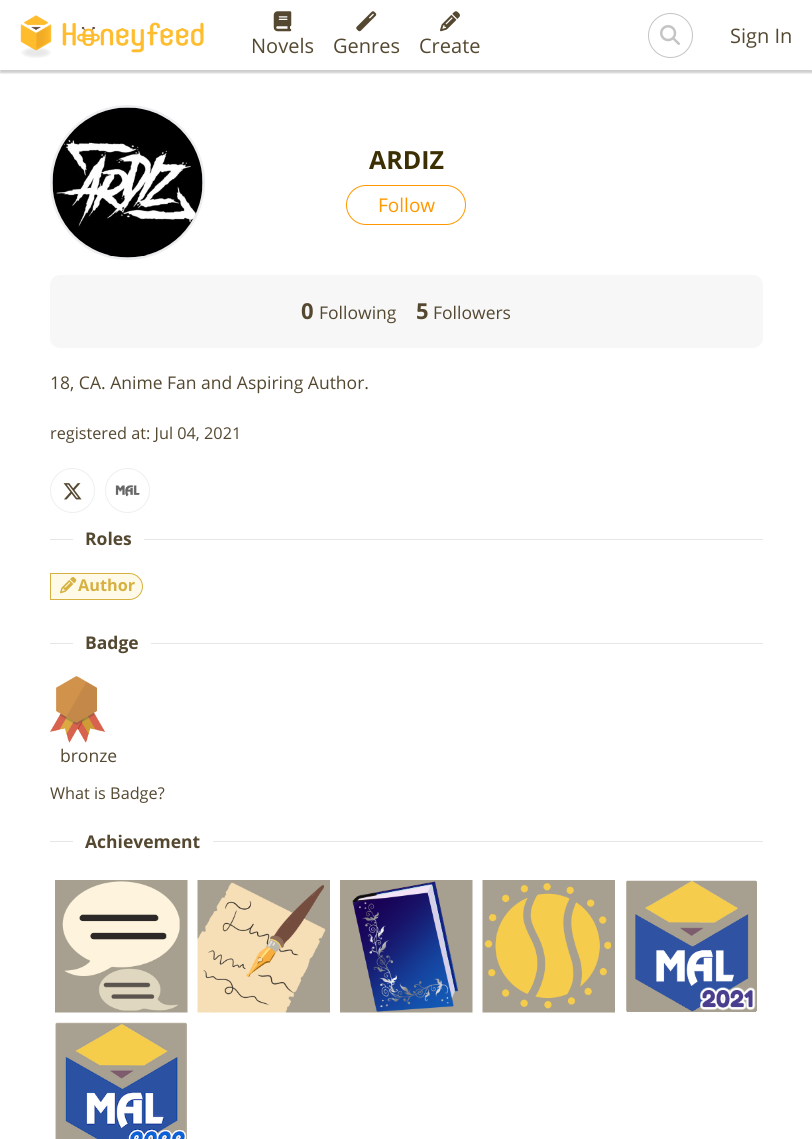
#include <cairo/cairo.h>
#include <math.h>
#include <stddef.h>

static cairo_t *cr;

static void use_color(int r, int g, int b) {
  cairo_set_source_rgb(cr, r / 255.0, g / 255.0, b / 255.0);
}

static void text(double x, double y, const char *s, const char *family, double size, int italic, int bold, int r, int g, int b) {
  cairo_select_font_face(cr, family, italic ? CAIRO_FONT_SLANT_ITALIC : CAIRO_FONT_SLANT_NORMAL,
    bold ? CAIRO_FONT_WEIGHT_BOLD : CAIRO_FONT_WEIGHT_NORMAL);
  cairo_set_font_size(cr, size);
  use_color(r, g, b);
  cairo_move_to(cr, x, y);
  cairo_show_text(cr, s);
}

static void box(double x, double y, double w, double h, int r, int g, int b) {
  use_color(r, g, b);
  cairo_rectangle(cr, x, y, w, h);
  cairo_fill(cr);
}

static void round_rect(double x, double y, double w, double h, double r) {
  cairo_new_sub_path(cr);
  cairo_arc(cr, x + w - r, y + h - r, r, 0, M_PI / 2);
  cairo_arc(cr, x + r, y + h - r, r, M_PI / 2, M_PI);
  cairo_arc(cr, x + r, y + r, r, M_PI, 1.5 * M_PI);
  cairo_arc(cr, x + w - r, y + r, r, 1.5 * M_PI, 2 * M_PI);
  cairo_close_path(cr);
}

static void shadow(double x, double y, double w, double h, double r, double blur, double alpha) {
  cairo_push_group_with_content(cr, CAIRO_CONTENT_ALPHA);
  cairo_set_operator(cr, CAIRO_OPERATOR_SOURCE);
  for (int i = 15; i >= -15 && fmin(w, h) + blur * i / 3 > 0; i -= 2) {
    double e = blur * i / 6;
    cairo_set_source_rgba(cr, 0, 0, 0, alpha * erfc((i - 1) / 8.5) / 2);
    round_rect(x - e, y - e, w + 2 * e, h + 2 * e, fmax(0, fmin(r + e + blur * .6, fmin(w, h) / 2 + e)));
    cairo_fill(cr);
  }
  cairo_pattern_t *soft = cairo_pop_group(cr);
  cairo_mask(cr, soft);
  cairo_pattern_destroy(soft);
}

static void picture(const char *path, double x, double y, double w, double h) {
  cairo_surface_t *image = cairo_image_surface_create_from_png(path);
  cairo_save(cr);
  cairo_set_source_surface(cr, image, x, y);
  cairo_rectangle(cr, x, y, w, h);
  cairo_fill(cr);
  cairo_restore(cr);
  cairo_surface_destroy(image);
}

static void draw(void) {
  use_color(255, 255, 255);
  cairo_paint(cr);
  cairo_save(cr);
  cairo_rectangle(cr, 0, 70, 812, 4);
  cairo_clip(cr);
  use_color(0, 0, 0);
  shadow(0, 3, 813, 70, 0, 1, 0.2);
  cairo_restore(cr);
  picture("img_01.png", 20, 15, 32, 43);
  picture("img_02.png", 62, 22, 142, 31);
  picture("img_03.png", 273, 11, 19, 21);
  picture("img_04.png", 356, 11, 21, 21);
  picture("img_05.png", 440, 11, 20, 21);
  cairo_arc(cr, 670.5, 35.5, 22, 0, 2 * M_PI);
  use_color(196, 196, 196);
  cairo_set_line_width(cr, 1);
  cairo_stroke(cr);
  picture("img_06.png", 660, 25, 20, 20);
  use_color(245, 245, 245);
  cairo_arc(cr, 128, 183, 75, 0, 2 * M_PI);
  cairo_fill(cr);
  cairo_arc(cr, 127.5, 182.5, 76, 0, 2 * M_PI);
  cairo_set_source_rgba(cr, 0.471, 0.51, 0.549, 0.13);
  cairo_set_line_width(cr, 3);
  cairo_stroke(cr);
  picture("img_07.png", 52, 107, 151, 151);
  round_rect(346.5, 185.5, 119, 39, 19.5);
  use_color(255, 152, 0);
  cairo_set_line_width(cr, 1);
  cairo_stroke(cr);
  use_color(247, 247, 247);
  round_rect(50, 275, 713, 73, 10);
  cairo_fill(cr);
  cairo_arc(cr, 72.5, 490.5, 22, 0, 2 * M_PI);
  use_color(237, 239, 240);
  cairo_stroke(cr);
  picture("img_08.png", 63, 483, 19, 17);
  cairo_arc(cr, 127.5, 490.5, 22, 0, 2 * M_PI);
  cairo_stroke(cr);
  picture("img_09.png", 115, 485, 25, 12);
  box(50, 539, 713, 1, 230, 230, 230);
  box(73, 539, 71, 1, 255, 255, 255);
  use_color(255, 250, 231);
  cairo_new_path(cr);
  cairo_move_to(cr, 50.5, 573.5);
  cairo_line_to(cr, 129.5, 573.5);
  cairo_curve_to(cr, 136.5, 573.5, 142.5, 579.5, 142.5, 586.5);
  cairo_curve_to(cr, 142.5, 593.5, 136.5, 599.5, 129.5, 599.5);
  cairo_line_to(cr, 50.5, 599.5);
  cairo_close_path(cr);
  cairo_fill_preserve(cr);
  use_color(214, 177, 65);
  cairo_stroke(cr);
  picture("img_10.png", 60, 577, 17, 17);
  box(50, 643, 713, 1, 230, 230, 230);
  box(73, 643, 78, 1, 255, 255, 255);
  picture("img_11.png", 50, 676, 55, 67);
  box(50, 841, 713, 1, 230, 230, 230);
  box(73, 841, 140, 1, 255, 255, 255);
  picture("img_12.png", 55, 880, 133, 133);
  picture("img_13.png", 197, 880, 133, 133);
  picture("img_14.png", 340, 880, 133, 133);
  picture("img_15.png", 482, 880, 133, 133);
  picture("img_16.png", 626, 880, 131, 132);
  picture("img_17.png", 55, 1022, 132, 117);
  text(251, 53, "Novels", "Open Sans", 20, 0, 0, 84, 72, 49);
  text(333, 53, "Genres", "Open Sans", 20, 0, 0, 84, 72, 49);
  text(419, 53, "Create", "Open Sans", 20, 0, 0, 84, 72, 49);
  text(730, 43, "Sign In", "Open Sans", 20, 0, 0, 84, 72, 49);
  text(369, 169, "ARDIZ", "Open Sans", 25, 0, 1, 60, 47, 3);
  text(378, 212, "Follow", "Open Sans", 19, 0, 0, 255, 152, 0);
  text(301, 319, "0", "Open Sans", 22, 0, 1, 84, 72, 49);
  text(319, 319, "Following", "Open Sans", 17.5, 0, 0, 84, 72, 49);
  text(416, 319, "5", "Open Sans", 22, 0, 1, 84, 72, 49);
  text(433, 319, "Followers", "Open Sans", 17.5, 0, 0, 84, 72, 49);
  text(50, 389, "18, CA. Anime Fan and Aspiring Author.", "Open Sans", 17.5, 0, 0, 84, 72, 49);
  text(50, 439, "registered at: Jul 04, 2021", "Open Sans", 16.25, 0, 0, 84, 72, 49);
  text(85, 545, "Roles", "Open Sans", 17.5, 0, 1, 84, 72, 49);
  text(78, 591, "Author", "Open Sans", 16.25, 0, 1, 214, 177, 65);
  text(85, 649, "Badge", "Open Sans", 17.5, 0, 1, 84, 72, 49);
  text(60, 762, "bronze", "Open Sans", 17.5, 0, 0, 84, 72, 49);
  text(50, 799, "What is Badge?", "Open Sans", 16.25, 0, 0, 84, 72, 49);
  text(85, 848, "Achievement", "Open Sans", 17.5, 0, 1, 84, 72, 49);
}

int main(void) {
  cairo_surface_t *surface = cairo_image_surface_create(CAIRO_FORMAT_RGB24, 812, 1139);
  cr = cairo_create(surface);
  cairo_font_options_t *options = cairo_font_options_create();
  cairo_font_options_set_hint_metrics(options, CAIRO_HINT_METRICS_OFF);
  cairo_font_options_set_hint_style(options, CAIRO_HINT_STYLE_NONE);
  cairo_set_font_options(cr, options);
  cairo_set_miter_limit(cr, 4);
  draw();
  cairo_surface_write_to_png(surface, "out.png");
  cairo_font_options_destroy(options);
  cairo_destroy(cr);
  cairo_surface_destroy(surface);
  return 0;
}
